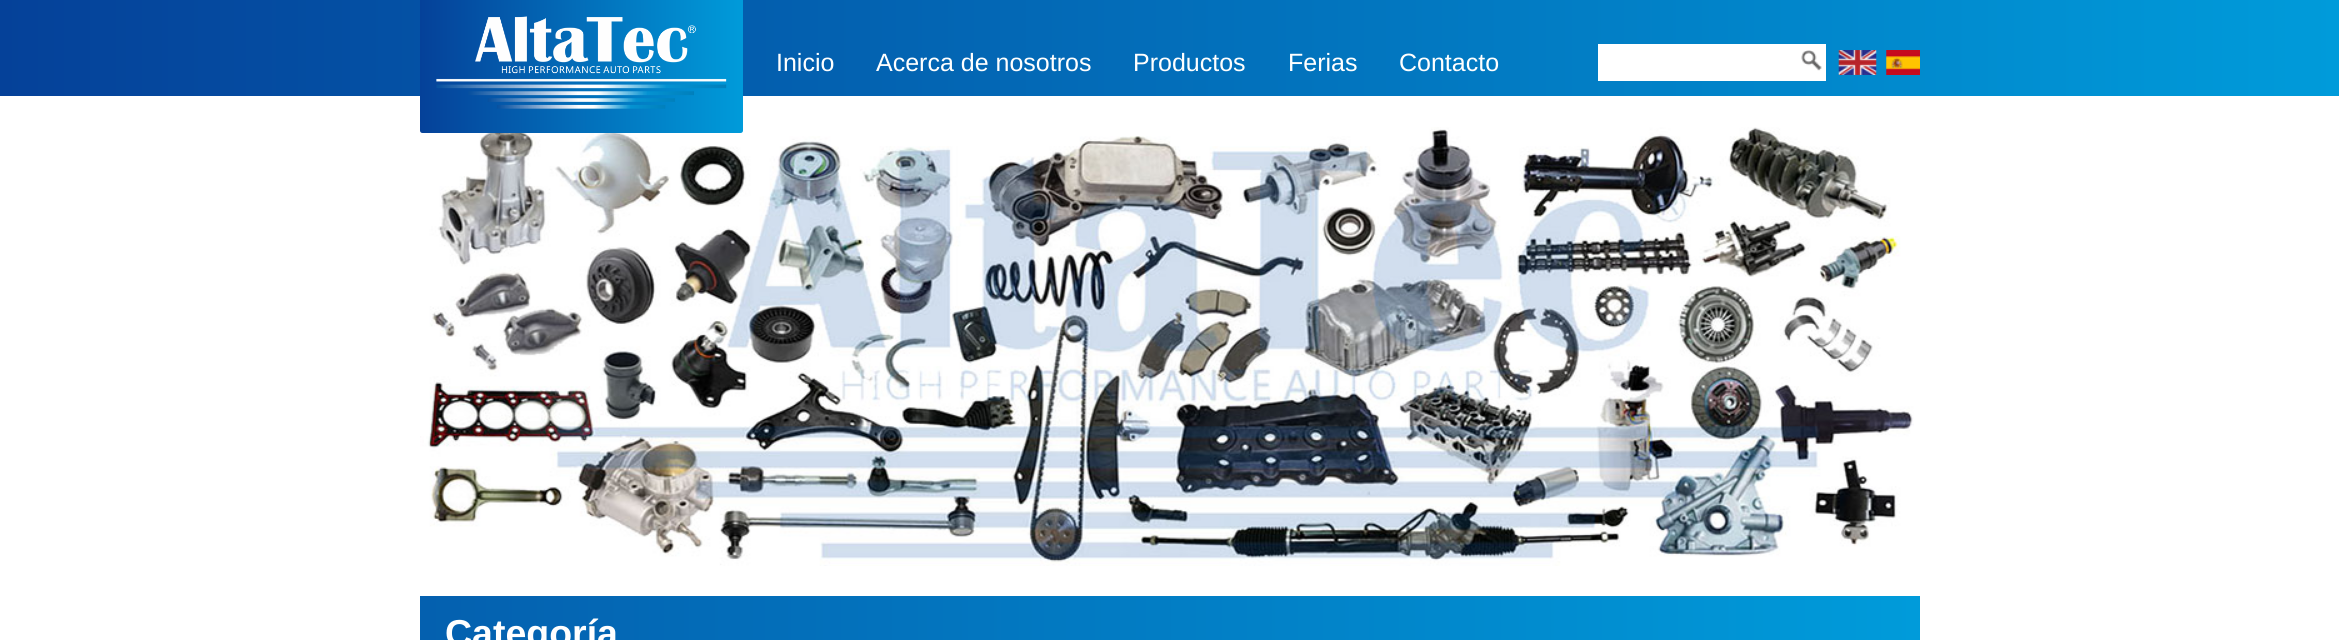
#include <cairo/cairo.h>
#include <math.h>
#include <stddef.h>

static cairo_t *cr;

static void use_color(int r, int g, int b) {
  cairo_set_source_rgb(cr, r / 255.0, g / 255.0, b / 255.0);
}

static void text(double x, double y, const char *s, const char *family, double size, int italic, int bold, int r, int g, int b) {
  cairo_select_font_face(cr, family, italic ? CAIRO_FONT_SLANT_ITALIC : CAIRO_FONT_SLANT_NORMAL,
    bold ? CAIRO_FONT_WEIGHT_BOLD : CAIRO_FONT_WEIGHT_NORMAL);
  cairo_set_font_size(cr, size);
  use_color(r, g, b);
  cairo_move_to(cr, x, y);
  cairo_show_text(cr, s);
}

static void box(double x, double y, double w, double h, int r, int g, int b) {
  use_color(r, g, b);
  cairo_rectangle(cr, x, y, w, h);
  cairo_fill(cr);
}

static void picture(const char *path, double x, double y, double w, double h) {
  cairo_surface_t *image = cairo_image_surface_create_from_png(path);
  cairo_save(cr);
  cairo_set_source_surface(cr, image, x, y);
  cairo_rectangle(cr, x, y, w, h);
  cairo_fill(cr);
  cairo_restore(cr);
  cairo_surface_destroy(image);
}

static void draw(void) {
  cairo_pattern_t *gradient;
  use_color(255, 255, 255);
  cairo_paint(cr);
  gradient = cairo_pattern_create_linear(0, 48, 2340, 48);
  cairo_pattern_add_color_stop_rgba(gradient, 0, 0.02, 0.255, 0.6, 1);
  cairo_pattern_add_color_stop_rgba(gradient, 1, 0, 0.608, 0.855, 1);
  cairo_set_source(cr, gradient);
  cairo_pattern_destroy(gradient);
  cairo_rectangle(cr, 0, 0, 2339, 96);
  cairo_fill(cr);
  picture("img_05.png", 420, 127, 1494, 439);
  gradient = cairo_pattern_create_linear(420, 66, 743, 66);
  cairo_pattern_add_color_stop_rgba(gradient, 0, 0.02, 0.255, 0.6, 1);
  cairo_pattern_add_color_stop_rgba(gradient, 1, 0, 0.608, 0.855, 1);
  cairo_set_source(cr, gradient);
  cairo_pattern_destroy(gradient);
  cairo_new_path(cr);
  cairo_move_to(cr, 420, 0);
  cairo_line_to(cr, 743, 0);
  cairo_line_to(cr, 743, 130.5);
  cairo_curve_to(cr, 743, 132, 742, 133, 740.5, 133);
  cairo_line_to(cr, 422.5, 133);
  cairo_curve_to(cr, 421, 133, 420, 132, 420, 130.5);
  cairo_close_path(cr);
  cairo_fill(cr);
  picture("img_01.png", 436, 16, 291, 93);
  box(1598, 44, 228, 37, 255, 255, 255);
  picture("img_02.png", 1801, 50, 21, 21);
  picture("img_03.png", 1838, 50, 39, 25);
  picture("img_04.png", 1886, 50, 34, 25);
  gradient = cairo_pattern_create_linear(420, 634, 1920, 634);
  cairo_pattern_add_color_stop_rgba(gradient, 0, 0.016, 0.376, 0.686, 1);
  cairo_pattern_add_color_stop_rgba(gradient, 1, 0, 0.608, 0.855, 1);
  cairo_set_source(cr, gradient);
  cairo_pattern_destroy(gradient);
  cairo_rectangle(cr, 420, 596, 1500, 44);
  cairo_fill(cr);
  text(776, 71, "Inicio", "Liberation Sans", 25, 0, 0, 255, 255, 255);
  text(876, 71, "Acerca de nosotros", "Liberation Sans", 25, 0, 0, 255, 255, 255);
  text(1133, 71, "Productos", "Liberation Sans", 25, 0, 0, 255, 255, 255);
  text(1288, 71, "Ferias", "Liberation Sans", 25, 0, 0, 255, 255, 255);
  text(1399, 71, "Contacto", "Liberation Sans", 25, 0, 0, 255, 255, 255);
  text(445, 646, "Categoría", "Liberation Sans", 37.5, 0, 1, 255, 255, 255);
}

int main(void) {
  cairo_surface_t *surface = cairo_image_surface_create(CAIRO_FORMAT_RGB24, 2339, 640);
  cr = cairo_create(surface);
  cairo_font_options_t *options = cairo_font_options_create();
  cairo_font_options_set_hint_metrics(options, CAIRO_HINT_METRICS_OFF);
  cairo_font_options_set_hint_style(options, CAIRO_HINT_STYLE_NONE);
  cairo_set_font_options(cr, options);
  cairo_set_miter_limit(cr, 4);
  draw();
  cairo_surface_write_to_png(surface, "out.png");
  cairo_font_options_destroy(options);
  cairo_destroy(cr);
  cairo_surface_destroy(surface);
  return 0;
}
